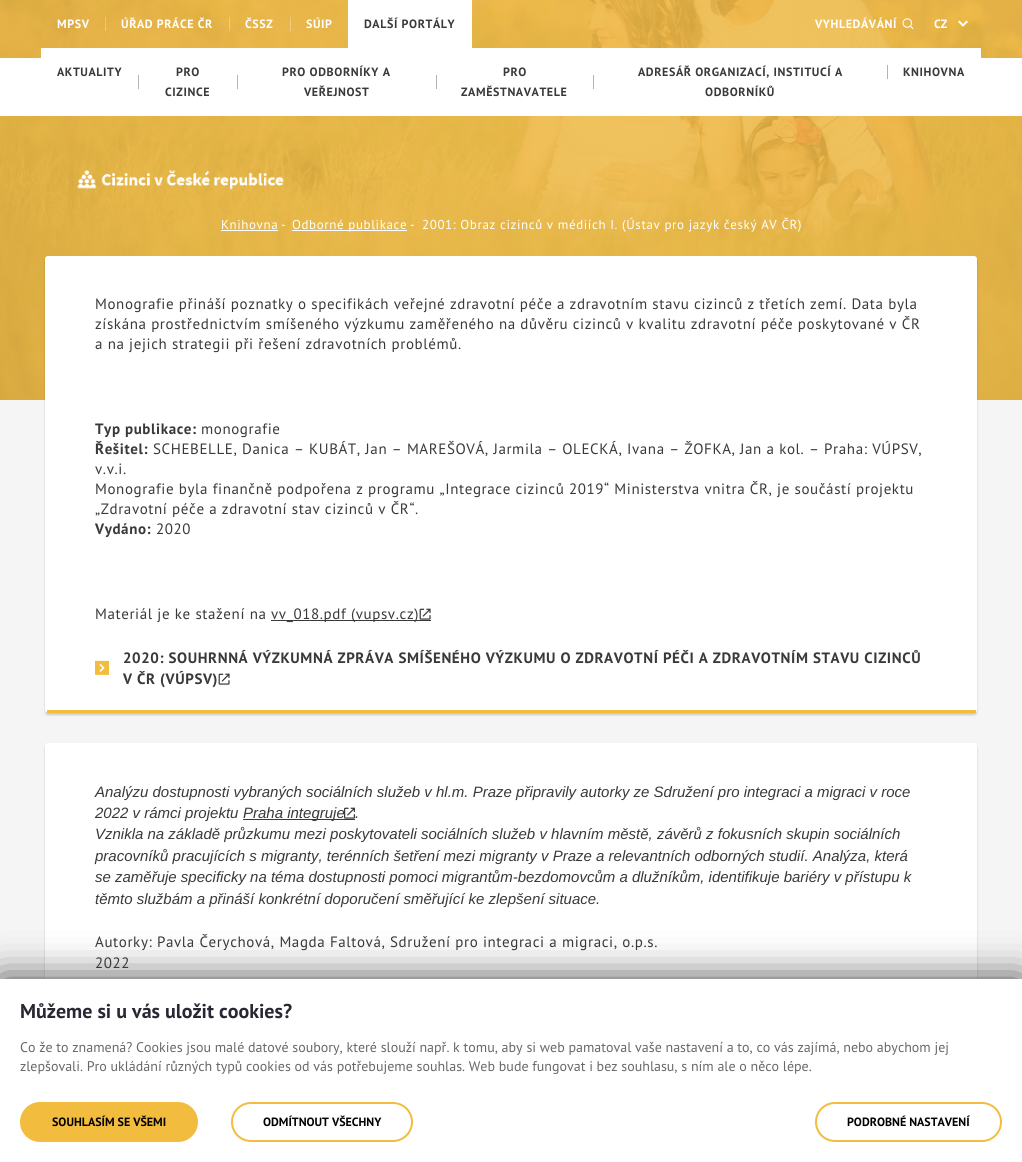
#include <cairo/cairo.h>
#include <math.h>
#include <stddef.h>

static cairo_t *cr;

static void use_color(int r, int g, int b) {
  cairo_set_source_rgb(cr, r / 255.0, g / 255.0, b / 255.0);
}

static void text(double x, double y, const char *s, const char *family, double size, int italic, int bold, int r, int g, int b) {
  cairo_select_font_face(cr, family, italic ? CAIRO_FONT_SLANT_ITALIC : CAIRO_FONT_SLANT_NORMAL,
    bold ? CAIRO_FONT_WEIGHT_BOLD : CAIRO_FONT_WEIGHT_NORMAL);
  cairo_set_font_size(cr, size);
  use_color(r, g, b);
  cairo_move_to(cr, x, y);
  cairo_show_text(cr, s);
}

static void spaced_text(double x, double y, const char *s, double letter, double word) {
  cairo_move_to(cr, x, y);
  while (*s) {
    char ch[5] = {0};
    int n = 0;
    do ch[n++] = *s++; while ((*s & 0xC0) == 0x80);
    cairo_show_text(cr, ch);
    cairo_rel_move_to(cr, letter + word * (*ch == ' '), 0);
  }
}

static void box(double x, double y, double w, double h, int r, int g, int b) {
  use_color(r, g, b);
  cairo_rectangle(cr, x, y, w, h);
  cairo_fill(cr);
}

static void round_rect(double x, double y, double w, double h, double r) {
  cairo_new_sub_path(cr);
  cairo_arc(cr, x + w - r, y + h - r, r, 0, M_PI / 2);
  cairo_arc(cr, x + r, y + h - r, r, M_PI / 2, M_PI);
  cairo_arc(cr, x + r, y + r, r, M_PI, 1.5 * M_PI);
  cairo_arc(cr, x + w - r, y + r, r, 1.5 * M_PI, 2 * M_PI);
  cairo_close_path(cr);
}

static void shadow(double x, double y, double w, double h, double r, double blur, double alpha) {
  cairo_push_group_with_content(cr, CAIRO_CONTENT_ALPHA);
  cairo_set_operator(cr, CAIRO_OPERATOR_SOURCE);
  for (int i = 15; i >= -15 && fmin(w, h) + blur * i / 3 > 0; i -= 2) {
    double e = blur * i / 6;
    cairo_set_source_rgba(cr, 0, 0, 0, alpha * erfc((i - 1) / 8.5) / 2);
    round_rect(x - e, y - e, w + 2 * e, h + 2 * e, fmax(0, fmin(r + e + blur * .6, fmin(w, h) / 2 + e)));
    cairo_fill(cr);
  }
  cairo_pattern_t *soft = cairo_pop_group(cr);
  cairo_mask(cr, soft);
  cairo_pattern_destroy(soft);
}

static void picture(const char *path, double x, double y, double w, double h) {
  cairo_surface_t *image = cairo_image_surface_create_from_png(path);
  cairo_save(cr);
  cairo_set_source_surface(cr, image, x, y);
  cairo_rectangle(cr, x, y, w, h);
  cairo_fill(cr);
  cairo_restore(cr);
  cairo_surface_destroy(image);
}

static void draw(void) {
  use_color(245, 245, 245);
  cairo_paint(cr);
  picture("img_01.png", 0, 0, 1022, 400);
  box(0, 58, 1022, 58, 255, 255, 255);
  cairo_set_source_rgba(cr, 1, 1, 1, 0.3);
  cairo_rectangle(cr, 105, 17, 1, 14);
  cairo_fill(cr);
  cairo_rectangle(cr, 229, 17, 1, 14);
  cairo_fill(cr);
  cairo_rectangle(cr, 290, 17, 1, 14);
  cairo_fill(cr);
  box(348, 0, 124, 48, 255, 255, 255);
  picture("img_02.png", 902, 18, 12, 12);
  picture("img_03.png", 958, 20, 10, 7);
  box(41, 48, 940, 10, 255, 255, 255);
  box(138, 75, 1, 14, 179, 179, 179);
  box(237, 75, 1, 14, 179, 179, 179);
  box(436, 75, 1, 14, 179, 179, 179);
  box(593, 75, 1, 14, 179, 179, 179);
  box(887, 65, 1, 14, 179, 179, 179);
  picture("img_04.png", 77, 170, 207, 20);
  box(221, 230, 57, 1, 255, 255, 255);
  box(292, 230, 115, 1, 255, 255, 255);
  use_color(0, 0, 0);
  shadow(45, 258, 932, 457, 3, 1, 0.18);
  use_color(255, 255, 255);
  round_rect(45, 256, 932, 457, 3);
  cairo_fill(cr);
  box(47, 710, 929, 3, 242, 189, 62);
  box(271, 620, 160, 1, 57, 57, 57);
  picture("img_05.png", 419, 608, 12, 12);
  picture("img_06.png", 95, 660, 14, 15);
  picture("img_05.png", 218, 673, 12, 12);
  use_color(0, 0, 0);
  shadow(45, 745, 932, 319, 3, 1, 0.18);
  use_color(255, 255, 255);
  round_rect(45, 743, 932, 319, 3);
  cairo_fill(cr);
  picture("img_07.png", 344, 807, 11, 12);
  box(243, 819, 112, 1, 57, 57, 57);
  use_color(59, 59, 59);
  shadow(0, 980, 1022, 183, 0, 20, 1);
  box(0, 979, 1022, 183, 255, 255, 255);
  use_color(242, 189, 62);
  round_rect(21, 1103, 176, 38, 19);
  cairo_fill_preserve(cr);
  cairo_stroke(cr);
  round_rect(232, 1103, 180, 38, 19);
  cairo_stroke(cr);
  round_rect(816, 1103, 185, 38, 19);
  cairo_stroke(cr);
  cairo_select_font_face(cr, "PT Sans", CAIRO_FONT_SLANT_NORMAL, CAIRO_FONT_WEIGHT_BOLD);
  cairo_set_font_size(cr, 12);
  use_color(255, 255, 255);
  spaced_text(57, 28, "MPSV", 0.6, 0);
  spaced_text(121, 28, "ÚŘAD PRÁCE ČR", 0.6, 0);
  spaced_text(245, 28, "ČSSZ", 0.6, 0);
  spaced_text(306, 28, "SÚIP", 0.6, 0);
  use_color(57, 57, 57);
  spaced_text(364, 28, "DALŠÍ PORTÁLY", 0.6, 0);
  use_color(255, 255, 255);
  spaced_text(815, 28, "VYHLEDÁVÁNÍ", 0.6, 0);
  text(934, 28, "CZ", "PT Sans", 12, 0, 1, 255, 255, 255);
  use_color(57, 57, 57);
  spaced_text(57, 76, "AKTUALITY", 0.6, 0);
  spaced_text(176, 76, "PRO", 0.6, 0);
  spaced_text(165, 96, "CIZINCE", 0.6, 0);
  spaced_text(282, 76, "PRO ODBORNÍKY A", 0.6, 0);
  spaced_text(304, 96, "VEŘEJNOST", 0.6, 0);
  spaced_text(503, 76, "PRO", 0.6, 0);
  spaced_text(461, 96, "ZAMĚSTNAVATELE", 0.6, 0);
  spaced_text(638, 76, "ADRESÁŘ ORGANIZACÍ, INSTITUCÍ A", 0.6, 0);
  spaced_text(705, 96, "ODBORNÍKŮ", 0.6, 0);
  spaced_text(903, 76, "KNIHOVNA", 0.6, 0);
  cairo_select_font_face(cr, "PT Sans", CAIRO_FONT_SLANT_NORMAL, CAIRO_FONT_WEIGHT_NORMAL);
  cairo_set_font_size(cr, 13);
  use_color(255, 255, 255);
  spaced_text(221, 229, "Knihovna", 0.6, 0);
  spaced_text(281, 229, "-", 0.6, 0);
  spaced_text(292, 229, "Odborné publikace", 0.6, 0);
  spaced_text(410, 229, "-", 0.6, 0);
  spaced_text(422, 229, "2001: Obraz cizinců v médiích I. (Ústav pro jazyk český AV ČR)", 0.6, 0);
  cairo_set_font_size(cr, 15);
  use_color(57, 57, 57);
  spaced_text(95, 309, "Monografie přináší poznatky o specifikách veřejné zdravotní péče a zdravotním stavu cizinců z třetích zemí. Data byla", 0.6, 0);
  spaced_text(95, 329, "získána prostřednictvím smíšeného výzkumu zaměřeného na důvěru cizinců v kvalitu zdravotní péče poskytované v ČR", 0.6, 0);
  spaced_text(95, 349, "a na jejich strategii při řešení zdravotních problémů.", 0.6, 0);
  cairo_select_font_face(cr, "PT Sans", CAIRO_FONT_SLANT_NORMAL, CAIRO_FONT_WEIGHT_BOLD);
  spaced_text(95, 434, "Typ publikace:", 0.6, 0);
  cairo_select_font_face(cr, "PT Sans", CAIRO_FONT_SLANT_NORMAL, CAIRO_FONT_WEIGHT_NORMAL);
  spaced_text(201, 434, "monografie", 0.6, 0);
  cairo_select_font_face(cr, "PT Sans", CAIRO_FONT_SLANT_NORMAL, CAIRO_FONT_WEIGHT_BOLD);
  spaced_text(95, 454, "Řešitel:", 0.6, 0);
  cairo_select_font_face(cr, "PT Sans", CAIRO_FONT_SLANT_NORMAL, CAIRO_FONT_WEIGHT_NORMAL);
  spaced_text(153, 454, "SCHEBELLE, Danica – KUBÁT, Jan – MAREŠOVÁ, Jarmila – OLECKÁ, Ivana – ŽOFKA, Jan a kol. – Praha: VÚPSV,", 0.6, 0);
  spaced_text(95, 474, "v.v.i.", 0.6, 0);
  spaced_text(95, 494, "Monografie byla finančně podpořena z programu „Integrace cizinců 2019“ Ministerstva vnitra ČR, je součástí projektu", 0.6, 0);
  spaced_text(95, 514, "„Zdravotní péče a zdravotní stav cizinců v ČR“.", 0.6, 0);
  cairo_select_font_face(cr, "PT Sans", CAIRO_FONT_SLANT_NORMAL, CAIRO_FONT_WEIGHT_BOLD);
  spaced_text(95, 534, "Vydáno:", 0.6, 0);
  cairo_select_font_face(cr, "PT Sans", CAIRO_FONT_SLANT_NORMAL, CAIRO_FONT_WEIGHT_NORMAL);
  spaced_text(156, 534, "2020", 0.6, 0);
  spaced_text(95, 619, "Materiál je ke stažení na", 0.6, 0);
  spaced_text(271, 619, "vv_018.pdf (vupsv.cz)", 0.6, 0);
  cairo_select_font_face(cr, "PT Sans", CAIRO_FONT_SLANT_NORMAL, CAIRO_FONT_WEIGHT_BOLD);
  spaced_text(123, 663, "2020: SOUHRNNÁ VÝZKUMNÁ ZPRÁVA SMÍŠENÉHO VÝZKUMU O ZDRAVOTNÍ PÉČI A ZDRAVOTNÍM STAVU CIZINCŮ", 0.6, 0);
  spaced_text(123, 684, "V ČR (VÚPSV)", 0.6, 0);
  text(95, 797, "Analýzu dostupnosti vybraných sociálních služeb v hl.m. Praze připravily autorky ze Sdružení pro integraci a migraci v roce", "Liberation Sans", 15, 1, 0, 57, 57, 57);
  text(95, 818, "2022 v rámci projektu", "Liberation Sans", 15, 1, 0, 57, 57, 57);
  text(243, 818, "Praha integruje", "Liberation Sans", 15, 1, 0, 57, 57, 57);
  text(355, 818, ".", "Liberation Sans", 15, 1, 0, 57, 57, 57);
  text(95, 839, "Vznikla na základě průzkumu mezi poskytovateli sociálních služeb v hlavním městě, závěrů z fokusních skupin sociálních", "Liberation Sans", 15, 1, 0, 57, 57, 57);
  text(95, 861, "pracovníků pracujících s migranty, terénních šetření mezi migranty v Praze a relevantních odborných studií. Analýza, která", "Liberation Sans", 15, 1, 0, 57, 57, 57);
  text(95, 882, "se zaměřuje specificky na téma dostupnosti pomoci migrantům-bezdomovcům a dlužníkům, identifikuje bariéry v přístupu k", "Liberation Sans", 15, 1, 0, 57, 57, 57);
  text(95, 904, "těmto službám a přináší konkrétní doporučení směřující ke zlepšení situace.", "Liberation Sans", 15, 1, 0, 57, 57, 57);
  cairo_select_font_face(cr, "PT Sans", CAIRO_FONT_SLANT_NORMAL, CAIRO_FONT_WEIGHT_NORMAL);
  spaced_text(95, 947, "Autorky: Pavla Čerychová, Magda Faltová, Sdružení pro integraci a migraci, o.p.s.", 0.6, 0);
  spaced_text(95, 968, "2022", 0.6, 0);
  text(20, 1018, "Můžeme si u vás uložit cookies?", "PT Sans", 20, 0, 1, 39, 40, 51);
  text(20, 1052, "Co že to znamená? Cookies jsou malé datové soubory, které slouží např. k tomu, aby si web pamatoval vaše nastavení a to, co vás zajímá, nebo abychom jej", "PT Sans", 14, 0, 0, 104, 104, 104);
  text(20, 1071, "zlepšovali. Pro ukládání různých typů cookies od vás potřebujeme souhlas. Web bude fungovat i bez souhlasu, s ním ale o něco lépe.", "PT Sans", 14, 0, 0, 104, 104, 104);
  text(52, 1126, "SOUHLASÍM SE VŠEMI", "PT Sans", 12, 0, 1, 0, 0, 0);
  text(263, 1126, "ODMÍTNOUT VŠECHNY", "PT Sans", 12, 0, 1, 0, 0, 0);
  text(847, 1126, "PODROBNÉ NASTAVENÍ", "PT Sans", 12, 0, 1, 0, 0, 0);
}

int main(void) {
  cairo_surface_t *surface = cairo_image_surface_create(CAIRO_FORMAT_RGB24, 1022, 1162);
  cr = cairo_create(surface);
  cairo_font_options_t *options = cairo_font_options_create();
  cairo_font_options_set_hint_metrics(options, CAIRO_HINT_METRICS_OFF);
  cairo_font_options_set_hint_style(options, CAIRO_HINT_STYLE_NONE);
  cairo_set_font_options(cr, options);
  cairo_set_miter_limit(cr, 4);
  draw();
  cairo_surface_write_to_png(surface, "out.png");
  cairo_font_options_destroy(options);
  cairo_destroy(cr);
  cairo_surface_destroy(surface);
  return 0;
}
